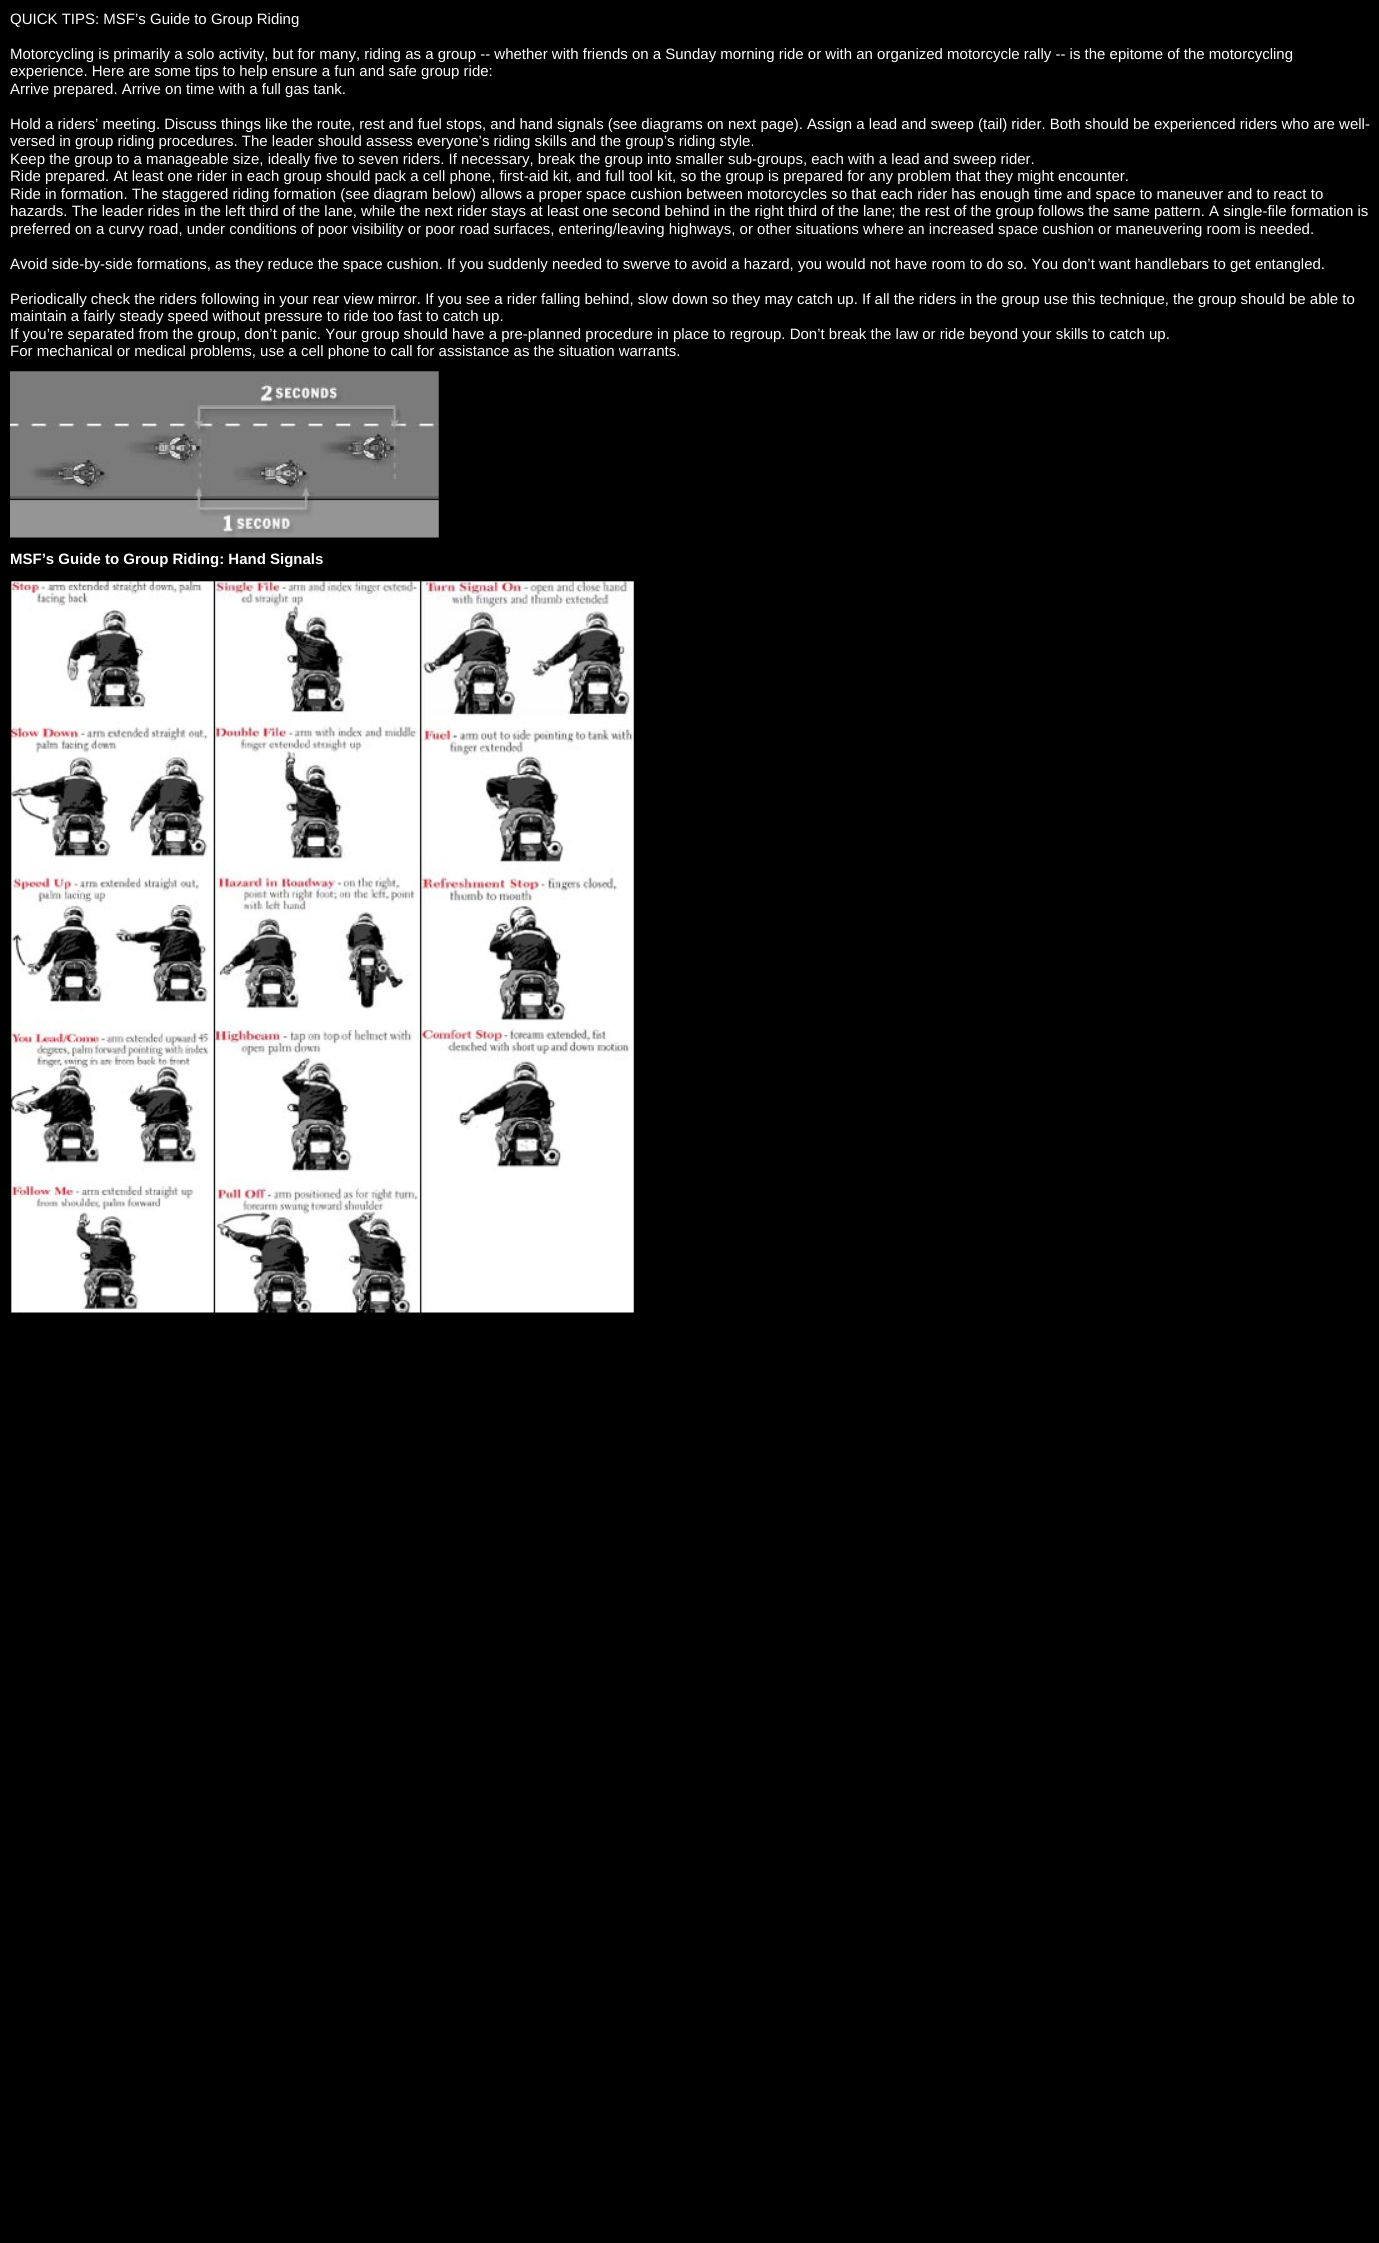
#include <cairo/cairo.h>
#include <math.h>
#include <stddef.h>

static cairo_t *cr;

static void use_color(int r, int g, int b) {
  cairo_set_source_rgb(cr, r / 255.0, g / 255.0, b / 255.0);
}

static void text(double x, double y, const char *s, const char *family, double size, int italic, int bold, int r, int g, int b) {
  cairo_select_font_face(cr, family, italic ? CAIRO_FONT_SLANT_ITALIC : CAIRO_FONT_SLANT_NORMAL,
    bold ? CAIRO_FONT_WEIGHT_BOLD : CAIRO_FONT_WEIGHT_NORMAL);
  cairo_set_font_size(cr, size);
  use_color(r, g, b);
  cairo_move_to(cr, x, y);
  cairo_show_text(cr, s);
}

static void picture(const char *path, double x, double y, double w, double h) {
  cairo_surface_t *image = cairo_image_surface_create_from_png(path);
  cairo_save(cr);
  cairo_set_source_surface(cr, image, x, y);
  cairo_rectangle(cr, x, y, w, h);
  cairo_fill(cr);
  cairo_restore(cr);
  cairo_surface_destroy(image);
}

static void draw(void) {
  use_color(0, 0, 0);
  cairo_paint(cr);
  picture("img_01.png", 10, 371, 429, 167);
  picture("img_02.png", 10, 580, 625, 734);
  text(10, 24, "QUICK TIPS: MSF’s Guide to Group Riding", "Liberation Sans", 15, 0, 0, 255, 255, 255);
  text(10, 59, "Motorcycling is primarily a solo activity, but for many, riding as a group -- whether with friends on a Sunday morning ride or with an organized motorcycle rally -- is the epitome of the motorcycling", "Liberation Sans", 15, 0, 0, 255, 255, 255);
  text(10, 76, "experience. Here are some tips to help ensure a fun and safe group ride:", "Liberation Sans", 15, 0, 0, 255, 255, 255);
  text(10, 94, "Arrive prepared. Arrive on time with a full gas tank.", "Liberation Sans", 15, 0, 0, 255, 255, 255);
  text(10, 129, "Hold a riders’ meeting. Discuss things like the route, rest and fuel stops, and hand signals (see diagrams on next page). Assign a lead and sweep (tail) rider. Both should be experienced riders who are well-", "Liberation Sans", 15, 0, 0, 255, 255, 255);
  text(10, 146, "versed in group riding procedures. The leader should assess everyone’s riding skills and the group’s riding style.", "Liberation Sans", 15, 0, 0, 255, 255, 255);
  text(10, 164, "Keep the group to a manageable size, ideally five to seven riders. If necessary, break the group into smaller sub-groups, each with a lead and sweep rider.", "Liberation Sans", 15, 0, 0, 255, 255, 255);
  text(10, 181, "Ride prepared. At least one rider in each group should pack a cell phone, first-aid kit, and full tool kit, so the group is prepared for any problem that they might encounter.", "Liberation Sans", 15, 0, 0, 255, 255, 255);
  text(10, 199, "Ride in formation. The staggered riding formation (see diagram below) allows a proper space cushion between motorcycles so that each rider has enough time and space to maneuver and to react to", "Liberation Sans", 15, 0, 0, 255, 255, 255);
  text(10, 216, "hazards. The leader rides in the left third of the lane, while the next rider stays at least one second behind in the right third of the lane; the rest of the group follows the same pattern. A single-file formation is", "Liberation Sans", 15, 0, 0, 255, 255, 255);
  text(10, 234, "preferred on a curvy road, under conditions of poor visibility or poor road surfaces, entering/leaving highways, or other situations where an increased space cushion or maneuvering room is needed.", "Liberation Sans", 15, 0, 0, 255, 255, 255);
  text(10, 269, "Avoid side-by-side formations, as they reduce the space cushion. If you suddenly needed to swerve to avoid a hazard, you would not have room to do so. You don’t want handlebars to get entangled.", "Liberation Sans", 15, 0, 0, 255, 255, 255);
  text(10, 304, "Periodically check the riders following in your rear view mirror. If you see a rider falling behind, slow down so they may catch up. If all the riders in the group use this technique, the group should be able to", "Liberation Sans", 15, 0, 0, 255, 255, 255);
  text(10, 321, "maintain a fairly steady speed without pressure to ride too fast to catch up.", "Liberation Sans", 15, 0, 0, 255, 255, 255);
  text(10, 339, "If you’re separated from the group, don’t panic. Your group should have a pre-planned procedure in place to regroup. Don’t break the law or ride beyond your skills to catch up.", "Liberation Sans", 15, 0, 0, 255, 255, 255);
  text(10, 356, "For mechanical or medical problems, use a cell phone to call for assistance as the situation warrants.", "Liberation Sans", 15, 0, 0, 255, 255, 255);
  text(10, 564, "MSF’s Guide to Group Riding: Hand Signals", "Liberation Sans", 15, 0, 1, 255, 255, 255);
}

int main(void) {
  cairo_surface_t *surface = cairo_image_surface_create(CAIRO_FORMAT_RGB24, 1379, 2243);
  cr = cairo_create(surface);
  cairo_font_options_t *options = cairo_font_options_create();
  cairo_font_options_set_hint_metrics(options, CAIRO_HINT_METRICS_OFF);
  cairo_font_options_set_hint_style(options, CAIRO_HINT_STYLE_NONE);
  cairo_set_font_options(cr, options);
  cairo_set_miter_limit(cr, 4);
  draw();
  cairo_surface_write_to_png(surface, "out.png");
  cairo_font_options_destroy(options);
  cairo_destroy(cr);
  cairo_surface_destroy(surface);
  return 0;
}
